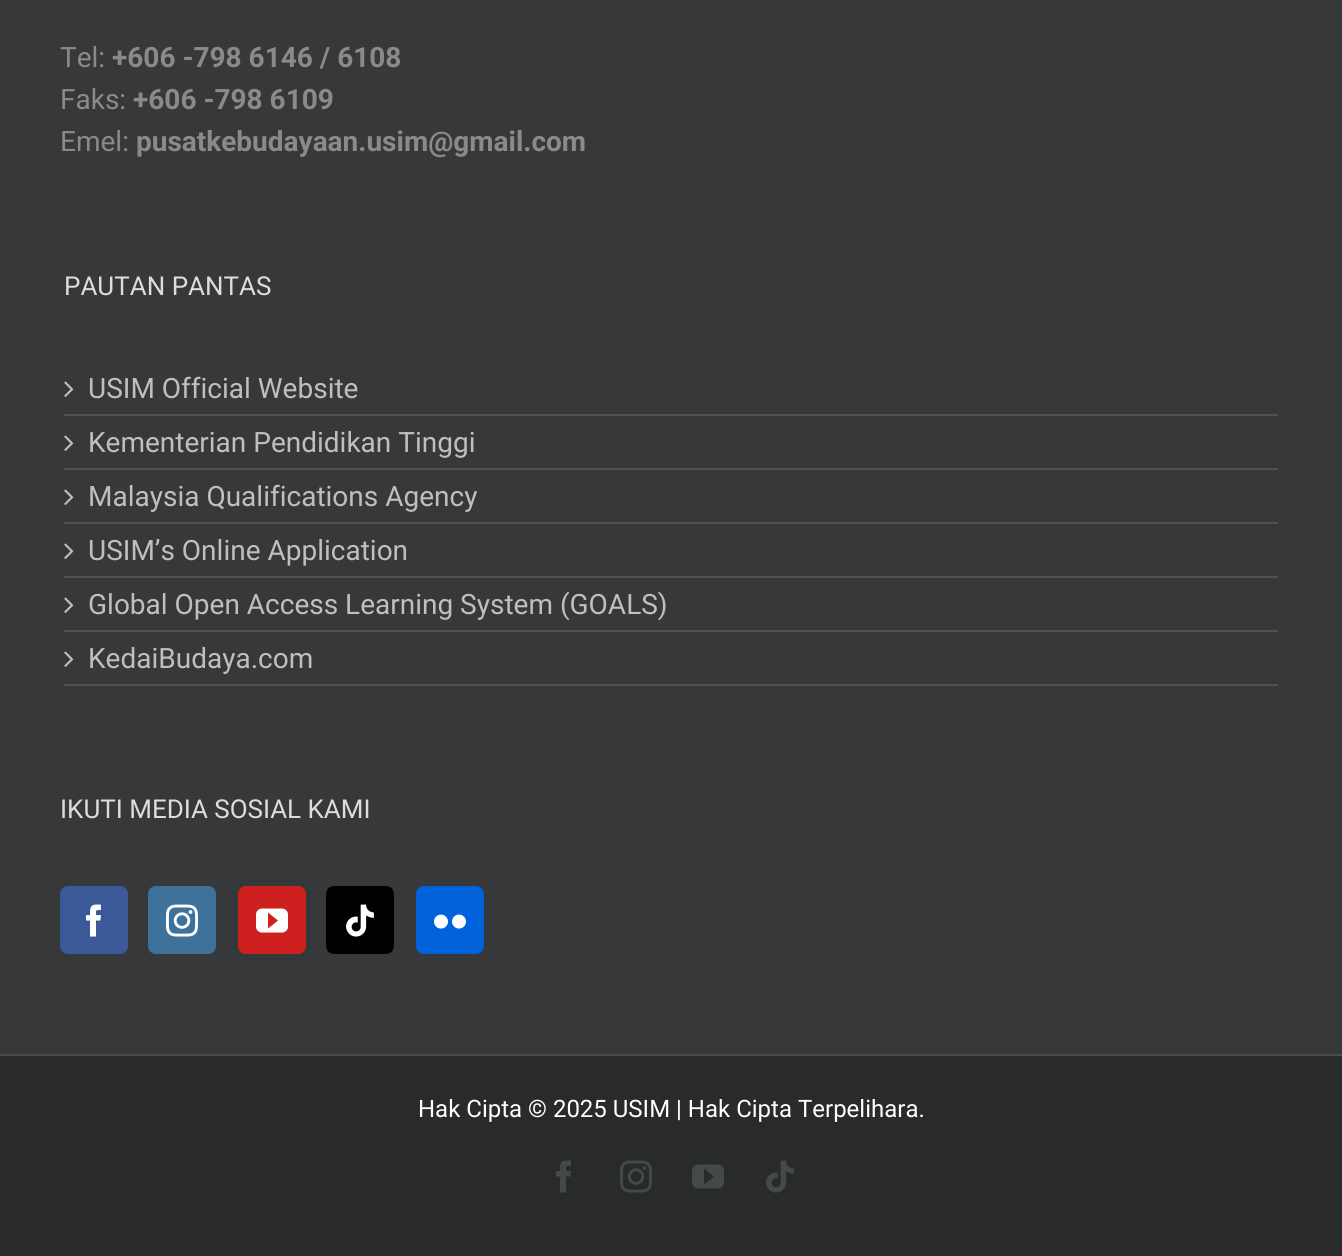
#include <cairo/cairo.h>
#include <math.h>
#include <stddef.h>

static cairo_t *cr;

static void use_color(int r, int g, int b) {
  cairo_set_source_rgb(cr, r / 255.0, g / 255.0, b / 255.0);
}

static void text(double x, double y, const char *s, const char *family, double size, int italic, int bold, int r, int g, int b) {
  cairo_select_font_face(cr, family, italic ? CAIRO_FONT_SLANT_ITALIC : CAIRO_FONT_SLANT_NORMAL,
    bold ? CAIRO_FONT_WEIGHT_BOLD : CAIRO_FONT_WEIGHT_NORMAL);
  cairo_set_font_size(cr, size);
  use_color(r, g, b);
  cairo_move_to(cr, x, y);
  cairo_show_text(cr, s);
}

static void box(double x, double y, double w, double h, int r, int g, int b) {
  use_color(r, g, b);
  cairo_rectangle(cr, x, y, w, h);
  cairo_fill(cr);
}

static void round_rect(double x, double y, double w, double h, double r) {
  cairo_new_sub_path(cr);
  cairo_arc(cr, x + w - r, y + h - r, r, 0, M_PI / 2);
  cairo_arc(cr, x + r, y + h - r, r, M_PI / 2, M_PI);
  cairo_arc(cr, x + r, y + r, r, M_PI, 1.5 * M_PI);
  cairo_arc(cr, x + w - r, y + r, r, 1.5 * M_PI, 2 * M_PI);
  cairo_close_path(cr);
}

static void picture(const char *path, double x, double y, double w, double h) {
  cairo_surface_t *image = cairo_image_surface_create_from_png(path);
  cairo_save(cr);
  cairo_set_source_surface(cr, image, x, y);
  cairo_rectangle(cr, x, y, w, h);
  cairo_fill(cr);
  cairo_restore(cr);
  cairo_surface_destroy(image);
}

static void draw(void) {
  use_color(54, 56, 57);
  cairo_paint(cr);
  box(64, 414, 1214, 2, 80, 81, 82);
  picture("img_01.png", 64, 381, 10, 16);
  box(64, 468, 1214, 2, 80, 81, 82);
  picture("img_01.png", 64, 435, 10, 16);
  box(64, 522, 1214, 2, 80, 81, 82);
  picture("img_01.png", 64, 489, 10, 16);
  box(64, 576, 1214, 2, 80, 81, 82);
  picture("img_01.png", 64, 543, 10, 16);
  box(64, 630, 1214, 2, 80, 81, 82);
  picture("img_01.png", 64, 597, 10, 16);
  box(64, 684, 1214, 2, 80, 81, 82);
  picture("img_01.png", 64, 651, 10, 16);
  use_color(59, 89, 152);
  round_rect(61, 887, 66, 66, 7);
  cairo_fill_preserve(cr);
  cairo_stroke(cr);
  picture("img_02.png", 86, 904, 15, 33);
  use_color(63, 114, 155);
  round_rect(149, 887, 66, 66, 7);
  cairo_fill_preserve(cr);
  cairo_stroke(cr);
  picture("img_03.png", 166, 904, 32, 33);
  use_color(205, 32, 31);
  round_rect(239, 887, 66, 66, 7);
  cairo_fill_preserve(cr);
  cairo_stroke(cr);
  picture("img_04.png", 256, 908, 32, 25);
  use_color(1, 1, 1);
  round_rect(327, 887, 66, 66, 7);
  cairo_fill_preserve(cr);
  cairo_stroke(cr);
  picture("img_05.png", 346, 904, 28, 33);
  use_color(0, 99, 220);
  round_rect(417, 887, 66, 66, 7);
  cairo_fill_preserve(cr);
  cairo_stroke(cr);
  picture("img_06.png", 434, 914, 32, 15);
  box(0, 1056, 1342, 200, 40, 42, 43);
  box(0, 1054, 1342, 2, 75, 76, 77);
  picture("img_07.png", 556, 1160, 15, 33);
  picture("img_08.png", 620, 1160, 32, 33);
  picture("img_09.png", 692, 1164, 32, 25);
  picture("img_10.png", 766, 1160, 28, 33);
  text(60, 67, "Tel:", "Roboto", 28, 0, 0, 140, 137, 137);
  text(112, 67, "+606 -798 6146 / 6108", "Roboto", 28, 0, 1, 140, 137, 137);
  text(60, 109, "Faks:", "Roboto", 28, 0, 0, 140, 137, 137);
  text(133, 109, "+606 -798 6109", "Roboto", 28, 0, 1, 140, 137, 137);
  text(60, 151, "Emel:", "Roboto", 28, 0, 0, 140, 137, 137);
  text(136, 151, "pusatkebudayaan.usim@gmail.com", "Roboto", 28, 0, 1, 140, 137, 137);
  text(64, 295, "PAUTAN PANTAS", "Roboto", 26, 0, 0, 221, 221, 221);
  text(88, 398, "USIM Official Website", "Roboto", 28, 0, 0, 191, 191, 191);
  text(88, 452, "Kementerian Pendidikan Tinggi", "Roboto", 28, 0, 0, 191, 191, 191);
  text(88, 506, "Malaysia Qualifications Agency", "Roboto", 28, 0, 0, 191, 191, 191);
  text(88, 560, "USIM’s Online Application", "Roboto", 28, 0, 0, 191, 191, 191);
  text(88, 614, "Global Open Access Learning System (GOALS)", "Roboto", 28, 0, 0, 191, 191, 191);
  text(88, 668, "KedaiBudaya.com", "Roboto", 28, 0, 0, 191, 191, 191);
  text(60, 818, "IKUTI MEDIA SOSIAL KAMI", "Roboto", 26, 0, 0, 221, 221, 221);
  text(418, 1117, "Hak Cipta © 2025 USIM | Hak Cipta Terpelihara.", "Roboto", 24, 0, 0, 255, 255, 255);
}

int main(void) {
  cairo_surface_t *surface = cairo_image_surface_create(CAIRO_FORMAT_RGB24, 1342, 1256);
  cr = cairo_create(surface);
  cairo_font_options_t *options = cairo_font_options_create();
  cairo_font_options_set_hint_metrics(options, CAIRO_HINT_METRICS_OFF);
  cairo_font_options_set_hint_style(options, CAIRO_HINT_STYLE_NONE);
  cairo_set_font_options(cr, options);
  cairo_set_miter_limit(cr, 4);
  draw();
  cairo_surface_write_to_png(surface, "out.png");
  cairo_font_options_destroy(options);
  cairo_destroy(cr);
  cairo_surface_destroy(surface);
  return 0;
}
